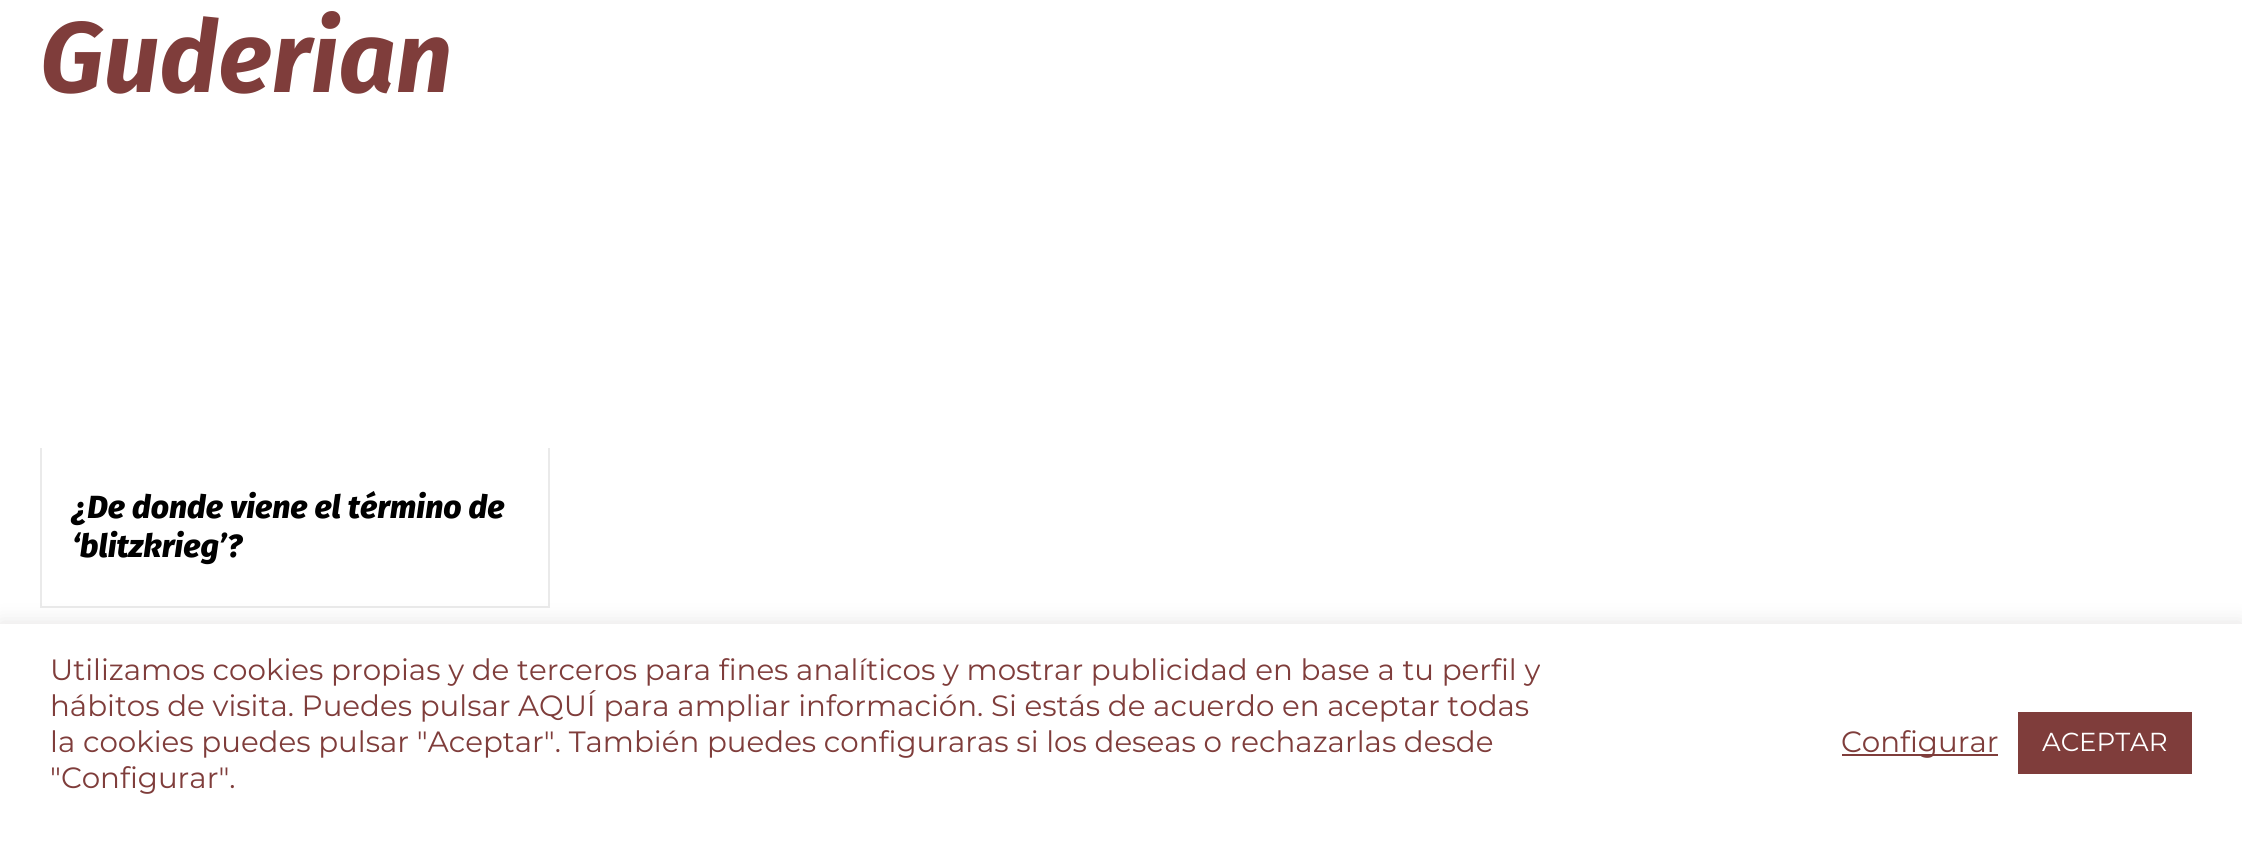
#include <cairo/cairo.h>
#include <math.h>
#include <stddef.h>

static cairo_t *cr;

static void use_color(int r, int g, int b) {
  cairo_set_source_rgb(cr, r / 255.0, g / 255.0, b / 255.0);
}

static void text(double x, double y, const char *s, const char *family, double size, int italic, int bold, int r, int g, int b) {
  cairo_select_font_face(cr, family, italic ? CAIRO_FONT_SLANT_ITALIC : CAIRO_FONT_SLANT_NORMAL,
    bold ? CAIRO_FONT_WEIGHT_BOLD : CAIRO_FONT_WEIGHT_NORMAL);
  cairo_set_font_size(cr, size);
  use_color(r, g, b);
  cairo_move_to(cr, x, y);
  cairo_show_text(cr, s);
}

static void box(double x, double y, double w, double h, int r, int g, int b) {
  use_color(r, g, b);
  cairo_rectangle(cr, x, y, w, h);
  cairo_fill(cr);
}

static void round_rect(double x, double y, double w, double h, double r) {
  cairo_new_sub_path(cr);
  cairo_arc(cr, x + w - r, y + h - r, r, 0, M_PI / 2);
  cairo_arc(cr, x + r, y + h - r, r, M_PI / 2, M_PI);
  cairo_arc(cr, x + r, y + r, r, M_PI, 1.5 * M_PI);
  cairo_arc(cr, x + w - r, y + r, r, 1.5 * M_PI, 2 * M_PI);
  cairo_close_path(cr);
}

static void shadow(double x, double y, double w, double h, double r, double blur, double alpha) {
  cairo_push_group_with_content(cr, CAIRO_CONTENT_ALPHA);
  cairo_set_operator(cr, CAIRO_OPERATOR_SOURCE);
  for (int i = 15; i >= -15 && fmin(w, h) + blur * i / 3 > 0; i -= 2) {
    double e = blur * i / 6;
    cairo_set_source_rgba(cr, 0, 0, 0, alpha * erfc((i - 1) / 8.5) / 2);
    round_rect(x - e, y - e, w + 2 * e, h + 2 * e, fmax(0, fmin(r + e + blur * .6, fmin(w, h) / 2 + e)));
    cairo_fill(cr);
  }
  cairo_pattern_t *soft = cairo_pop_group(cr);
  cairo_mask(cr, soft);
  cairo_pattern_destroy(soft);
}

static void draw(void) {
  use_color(255, 255, 255);
  cairo_paint(cr);
  box(548, 448, 2, 160, 234, 234, 234);
  box(40, 606, 510, 2, 234, 234, 234);
  box(40, 448, 2, 160, 234, 234, 234);
  use_color(172, 171, 171);
  shadow(0, 622, 2242, 236, 0, 10, 0.3);
  box(0, 624, 2242, 236, 255, 255, 255);
  box(1842, 754, 156, 2, 127, 61, 59);
  box(2018, 712, 174, 62, 127, 61, 59);
  text(40, 92, "Guderian", "Fira Sans", 100, 1, 1, 127, 61, 59);
  text(72, 518, "¿De donde viene el término de", "Fira Sans ExtraBold", 32, 1, 0, 0, 0, 0);
  text(72, 557, "‘blitzkrieg’?", "Fira Sans ExtraBold", 32, 1, 0, 0, 0, 0);
  text(50, 680, "Utilizamos cookies propias y de terceros para fines analíticos y mostrar publicidad en base a tu perfil y", "Montserrat", 29.33, 0, 0, 127, 61, 59);
  text(50, 716, "hábitos de visita. Puedes pulsar", "Montserrat", 29.33, 0, 0, 127, 61, 59);
  text(518, 716, "AQUÍ para ampliar información. Si estás de acuerdo en aceptar todas", "Montserrat", 29.33, 0, 0, 127, 61, 59);
  text(50, 752, "la cookies puedes pulsar \"Aceptar\". También puedes configuraras si los deseas o rechazarlas desde", "Montserrat", 29.33, 0, 0, 127, 61, 59);
  text(50, 788, "\"Configurar\".", "Montserrat", 29.33, 0, 0, 127, 61, 59);
  text(1841, 752, "Configurar", "Montserrat", 29.33, 0, 0, 127, 61, 59);
  text(2042, 751, "ACEPTAR", "Montserrat", 26, 0, 0, 255, 255, 255);
}

int main(void) {
  cairo_surface_t *surface = cairo_image_surface_create(CAIRO_FORMAT_RGB24, 2242, 860);
  cr = cairo_create(surface);
  cairo_font_options_t *options = cairo_font_options_create();
  cairo_font_options_set_hint_metrics(options, CAIRO_HINT_METRICS_OFF);
  cairo_font_options_set_hint_style(options, CAIRO_HINT_STYLE_NONE);
  cairo_set_font_options(cr, options);
  cairo_set_miter_limit(cr, 4);
  draw();
  cairo_surface_write_to_png(surface, "out.png");
  cairo_font_options_destroy(options);
  cairo_destroy(cr);
  cairo_surface_destroy(surface);
  return 0;
}
